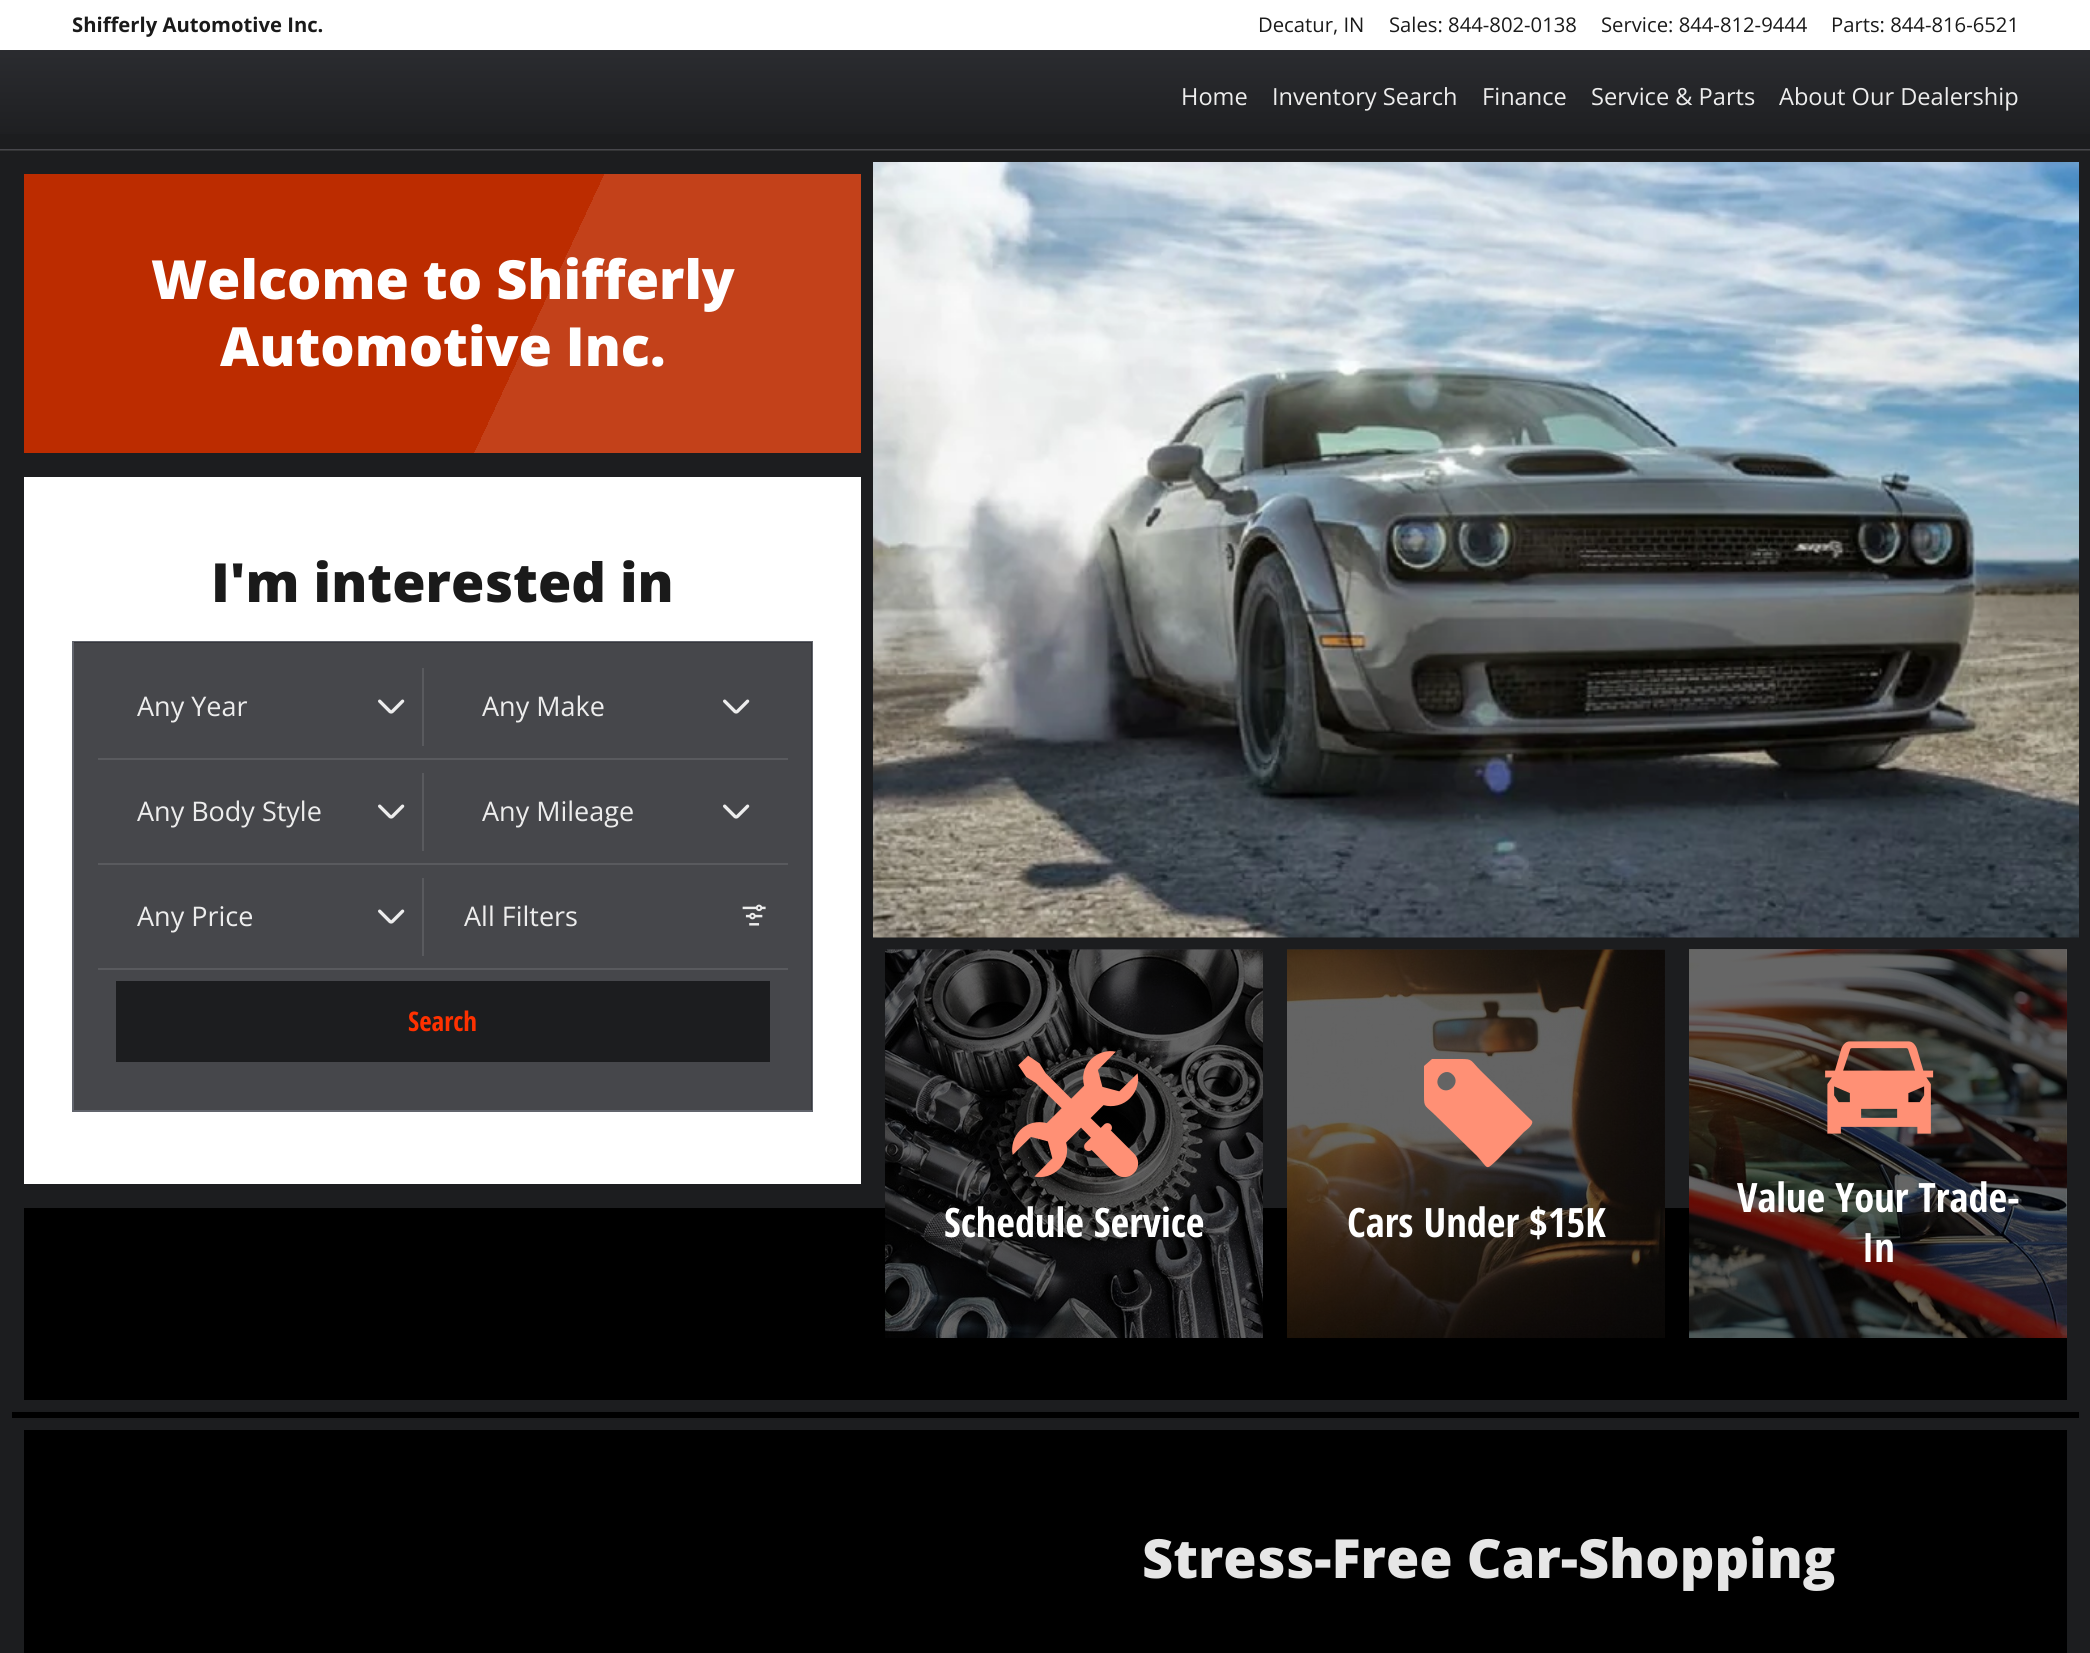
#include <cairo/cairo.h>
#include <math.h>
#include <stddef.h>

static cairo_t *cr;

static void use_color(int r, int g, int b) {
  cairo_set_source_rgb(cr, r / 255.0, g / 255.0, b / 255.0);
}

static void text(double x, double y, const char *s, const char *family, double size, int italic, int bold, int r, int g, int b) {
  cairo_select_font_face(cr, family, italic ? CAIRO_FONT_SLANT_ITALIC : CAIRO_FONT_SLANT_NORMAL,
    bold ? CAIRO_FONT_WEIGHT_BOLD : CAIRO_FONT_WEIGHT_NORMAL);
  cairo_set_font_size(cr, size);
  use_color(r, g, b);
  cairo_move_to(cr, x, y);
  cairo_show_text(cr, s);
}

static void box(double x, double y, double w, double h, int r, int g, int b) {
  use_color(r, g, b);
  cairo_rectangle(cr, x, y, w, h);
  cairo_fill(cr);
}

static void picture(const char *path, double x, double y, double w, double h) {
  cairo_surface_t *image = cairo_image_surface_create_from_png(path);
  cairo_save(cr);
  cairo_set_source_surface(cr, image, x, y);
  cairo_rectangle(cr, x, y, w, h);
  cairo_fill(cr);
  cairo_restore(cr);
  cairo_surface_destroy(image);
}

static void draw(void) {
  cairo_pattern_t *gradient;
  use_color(28, 29, 31);
  cairo_paint(cr);
  box(0, 150, 2090, 1, 51, 52, 53);
  box(0, 149, 2090, 1, 71, 71, 76);
  gradient = cairo_pattern_create_linear(1046, 0, 1046, 149);
  cairo_pattern_add_color_stop_rgba(gradient, 0, 0.196, 0.2, 0.22, 1);
  cairo_pattern_add_color_stop_rgba(gradient, 1, 0.11, 0.114, 0.122, 1);
  cairo_set_source(cr, gradient);
  cairo_pattern_destroy(gradient);
  cairo_rectangle(cr, 0, 50, 2090, 84);
  cairo_fill(cr);
  box(0, 0, 2090, 50, 255, 255, 255);
  gradient = cairo_pattern_create_linear(45, 128, 840, 499);
  cairo_pattern_add_color_stop_rgba(gradient, 0, 0.737, 0.173, 0, 1);
  cairo_pattern_add_color_stop_rgba(gradient, 0.6, 0.737, 0.173, 0, 1);
  cairo_pattern_add_color_stop_rgba(gradient, 0.6, 0.765, 0.255, 0.102, 1);
  cairo_pattern_add_color_stop_rgba(gradient, 1, 0.765, 0.255, 0.102, 1);
  cairo_set_source(cr, gradient);
  cairo_pattern_destroy(gradient);
  cairo_rectangle(cr, 24, 174, 837, 279);
  cairo_fill(cr);
  box(24, 477, 837, 707, 255, 255, 255);
  cairo_rectangle(cr, 73, 642, 739, 469);
  use_color(97, 100, 108);
  cairo_stroke(cr);
  cairo_set_source_rgba(cr, 0.196, 0.2, 0.22, 0.9);
  cairo_rectangle(cr, 74, 642, 738, 468);
  cairo_fill(cr);
  picture("img_01.png", 378, 699, 27, 15);
  box(422, 668, 2, 78, 89, 90, 94);
  box(98, 758, 690, 2, 89, 90, 94);
  picture("img_01.png", 723, 699, 27, 15);
  picture("img_01.png", 378, 804, 27, 15);
  box(422, 773, 2, 78, 89, 90, 94);
  box(98, 863, 690, 2, 89, 90, 94);
  picture("img_01.png", 723, 804, 27, 15);
  picture("img_01.png", 378, 909, 27, 15);
  box(422, 878, 2, 78, 89, 90, 94);
  box(98, 968, 690, 2, 89, 90, 94);
  picture("img_02.png", 742, 904, 24, 22);
  box(116, 981, 654, 81, 28, 29, 31);
  picture("img_03.png", 873, 162, 1206, 776);
  box(24, 1208, 2043, 192, 0, 0, 0);
  picture("img_04.png", 885, 949, 378, 389);
  picture("img_05.png", 1012, 1051, 127, 127);
  picture("img_06.png", 1287, 949, 378, 389);
  use_color(255, 144, 117);
  cairo_new_path(cr);
  cairo_move_to(cr, 1532, 1121);
  cairo_line_to(cr, 1481, 1071);
  cairo_curve_to(cr, 1470, 1060, 1473, 1059, 1461, 1059);
  cairo_line_to(cr, 1432, 1059);
  cairo_line_to(cr, 1424, 1066);
  cairo_line_to(cr, 1424, 1096);
  cairo_curve_to(cr, 1424, 1108, 1425, 1105, 1436, 1116);
  cairo_line_to(cr, 1477, 1156);
  cairo_curve_to(cr, 1489, 1169, 1485, 1171, 1497, 1160);
  cairo_line_to(cr, 1524, 1132);
  cairo_curve_to(cr, 1525, 1131, 1534, 1125, 1532, 1121);
  cairo_close_path(cr);
  cairo_move_to(cr, 1440, 1088);
  cairo_curve_to(cr, 1432, 1080, 1444, 1067, 1452, 1074);
  cairo_curve_to(cr, 1462, 1082, 1449, 1096, 1440, 1088);
  cairo_close_path(cr);
  cairo_fill(cr);
  picture("img_07.png", 1689, 949, 378, 389);
  picture("img_08.png", 1825, 1041, 109, 93);
  box(12, 1412, 2067, 6, 0, 0, 0);
  box(24, 1430, 2043, 223, 0, 0, 0);
  text(72, 32, "Shifferly Automotive Inc.", "Open Sans", 20.25, 0, 1, 26, 26, 26);
  text(1258, 32, "Decatur, IN", "Open Sans", 20.25, 0, 0, 26, 26, 26);
  text(1389, 32, "Sales: 844-802-0138", "Open Sans", 20.25, 0, 0, 26, 26, 26);
  text(1601, 32, "Service: 844-812-9444", "Open Sans", 20.25, 0, 0, 26, 26, 26);
  text(1831, 32, "Parts: 844-816-6521", "Open Sans", 20.25, 0, 0, 26, 26, 26);
  text(1181, 105, "Home", "Open Sans", 23.6, 0, 0, 237, 237, 237);
  text(1272, 105, "Inventory Search", "Open Sans", 23.6, 0, 0, 237, 237, 237);
  text(1482, 105, "Finance", "Open Sans", 23.6, 0, 0, 237, 237, 237);
  text(1591, 105, "Service & Parts", "Open Sans", 23.6, 0, 0, 237, 237, 237);
  text(1779, 105, "About Our Dealership", "Open Sans", 23.6, 0, 0, 237, 237, 237);
  text(151, 299, "Welcome to Shifferly", "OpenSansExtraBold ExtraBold", 54, 0, 0, 255, 255, 255);
  text(220, 366, "Automotive Inc.", "OpenSansExtraBold ExtraBold", 54, 0, 0, 255, 255, 255);
  text(211, 602, "I'm interested in", "OpenSansExtraBold ExtraBold", 54, 0, 0, 26, 26, 26);
  text(137, 716, "Any Year", "Open Sans", 27, 0, 0, 237, 237, 237);
  text(482, 716, "Any Make", "Open Sans", 27, 0, 0, 237, 237, 237);
  text(137, 821, "Any Body Style", "Open Sans", 27, 0, 0, 237, 237, 237);
  text(482, 821, "Any Mileage", "Open Sans", 27, 0, 0, 237, 237, 237);
  text(137, 926, "Any Price", "Open Sans", 27, 0, 0, 237, 237, 237);
  text(464, 926, "All Filters", "Open Sans", 27, 0, 0, 237, 237, 237);
  text(408, 1031, "Search", "Open Sans Condensed", 27, 0, 1, 255, 49, 0);
  text(944, 1237, "Schedule Service", "Open Sans Condensed", 40.5, 0, 1, 255, 255, 255);
  text(1347, 1237, "Cars Under $15K", "Open Sans Condensed", 40.5, 0, 1, 255, 255, 255);
  text(1737, 1212, "Value Your Trade-", "Open Sans Condensed", 40.5, 0, 1, 255, 255, 255);
  text(1862, 1262, "In", "Open Sans Condensed", 40.5, 0, 1, 255, 255, 255);
  text(1142, 1578, "Stress-Free Car-Shopping", "OpenSansExtraBold ExtraBold", 54, 0, 0, 230, 230, 230);
}

int main(void) {
  cairo_surface_t *surface = cairo_image_surface_create(CAIRO_FORMAT_RGB24, 2090, 1653);
  cr = cairo_create(surface);
  cairo_font_options_t *options = cairo_font_options_create();
  cairo_font_options_set_hint_metrics(options, CAIRO_HINT_METRICS_OFF);
  cairo_font_options_set_hint_style(options, CAIRO_HINT_STYLE_NONE);
  cairo_set_font_options(cr, options);
  cairo_set_miter_limit(cr, 4);
  draw();
  cairo_surface_write_to_png(surface, "out.png");
  cairo_font_options_destroy(options);
  cairo_destroy(cr);
  cairo_surface_destroy(surface);
  return 0;
}
